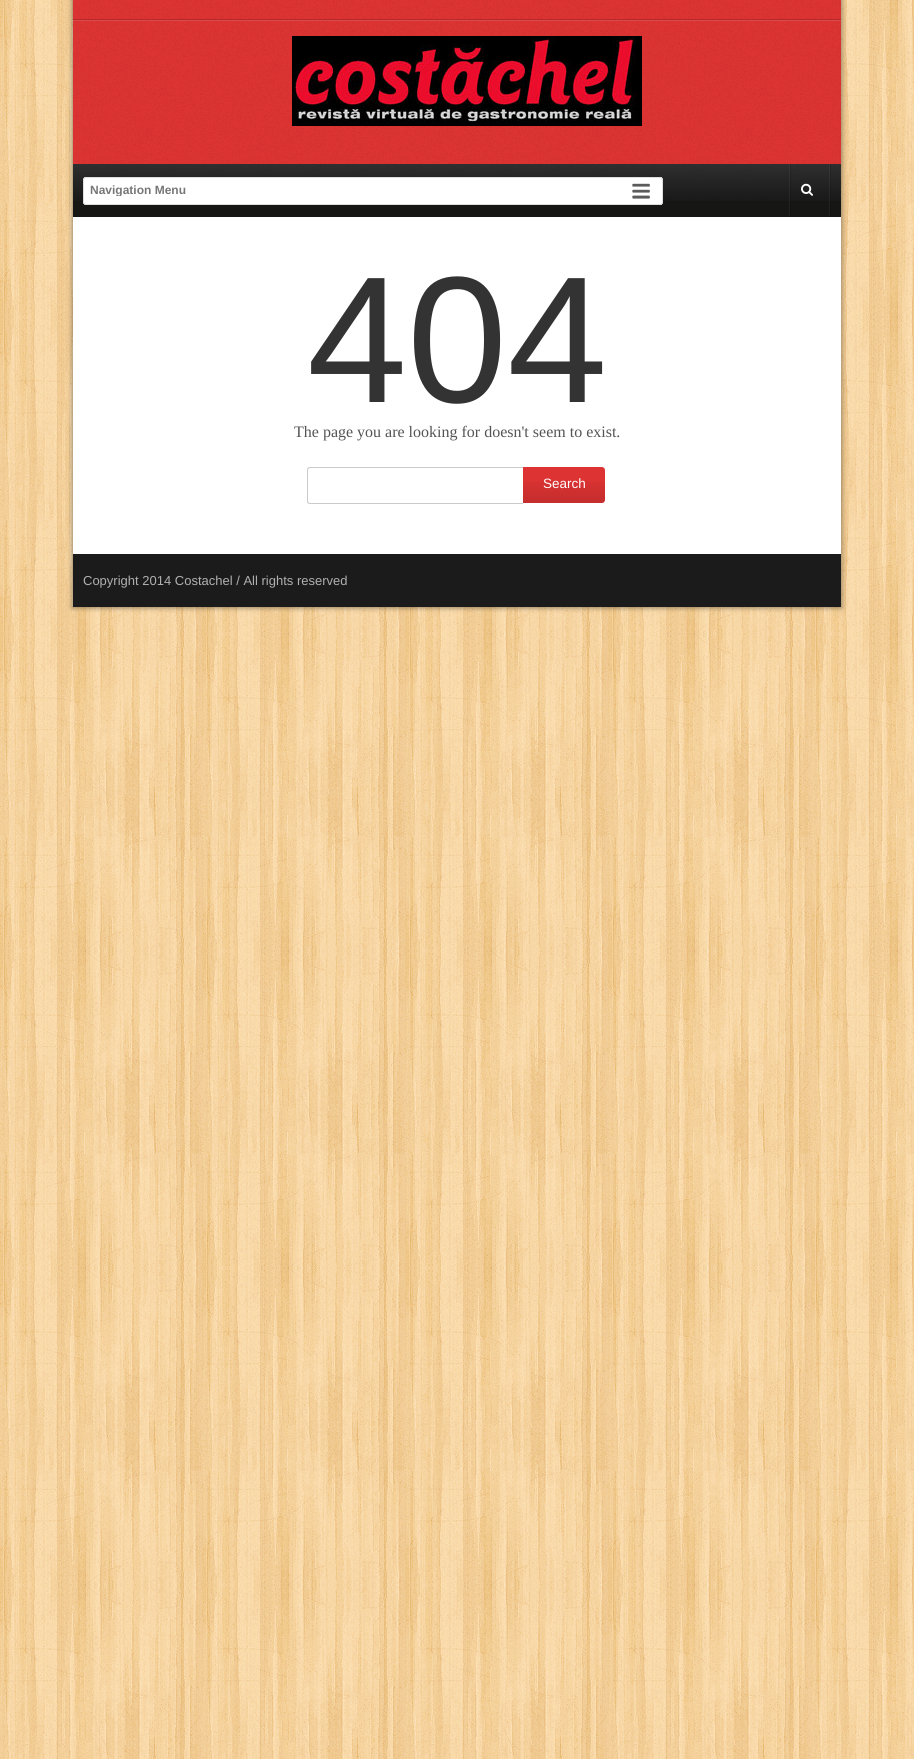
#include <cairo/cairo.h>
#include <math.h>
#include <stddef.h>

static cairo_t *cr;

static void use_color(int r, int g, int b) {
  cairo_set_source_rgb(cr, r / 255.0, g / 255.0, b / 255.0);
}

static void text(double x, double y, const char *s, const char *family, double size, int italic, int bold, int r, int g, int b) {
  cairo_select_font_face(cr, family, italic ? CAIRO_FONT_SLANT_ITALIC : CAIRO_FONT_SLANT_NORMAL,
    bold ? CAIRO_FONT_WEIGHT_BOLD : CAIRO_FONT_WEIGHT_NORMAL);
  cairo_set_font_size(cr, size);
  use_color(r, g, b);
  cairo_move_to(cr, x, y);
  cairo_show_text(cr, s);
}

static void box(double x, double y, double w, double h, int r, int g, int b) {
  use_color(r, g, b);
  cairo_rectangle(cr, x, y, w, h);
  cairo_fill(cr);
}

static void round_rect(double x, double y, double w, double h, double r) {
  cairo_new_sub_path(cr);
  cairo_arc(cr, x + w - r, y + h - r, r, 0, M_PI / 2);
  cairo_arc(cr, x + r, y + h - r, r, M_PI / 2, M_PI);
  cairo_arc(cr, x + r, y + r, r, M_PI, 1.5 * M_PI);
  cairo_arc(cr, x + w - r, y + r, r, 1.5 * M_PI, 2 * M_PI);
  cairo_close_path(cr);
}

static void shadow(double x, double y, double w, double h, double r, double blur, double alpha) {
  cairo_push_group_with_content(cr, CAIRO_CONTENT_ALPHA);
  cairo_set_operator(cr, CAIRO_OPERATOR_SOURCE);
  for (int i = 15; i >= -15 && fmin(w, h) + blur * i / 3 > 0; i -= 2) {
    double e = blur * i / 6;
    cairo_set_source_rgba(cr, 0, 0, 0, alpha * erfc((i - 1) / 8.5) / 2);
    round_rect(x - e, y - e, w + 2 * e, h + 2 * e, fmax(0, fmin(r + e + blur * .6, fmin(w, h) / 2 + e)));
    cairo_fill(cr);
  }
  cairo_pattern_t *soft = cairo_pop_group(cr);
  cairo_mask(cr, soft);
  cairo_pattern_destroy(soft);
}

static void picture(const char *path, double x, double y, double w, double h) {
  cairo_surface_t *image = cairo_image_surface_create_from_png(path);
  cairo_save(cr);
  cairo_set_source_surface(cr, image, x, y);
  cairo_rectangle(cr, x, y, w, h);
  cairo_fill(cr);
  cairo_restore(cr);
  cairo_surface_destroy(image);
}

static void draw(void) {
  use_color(255, 255, 255);
  cairo_paint(cr);
  picture("img_01.png", 0, 0, 914, 1759);
  use_color(0, 0, 0);
  shadow(72, -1, 770, 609, 0, 2.5, 0.4);
  box(73, 217, 768, 337, 255, 255, 255);
  box(73, 0, 768, 164, 221, 51, 51);
  picture("img_02.png", 73, 0, 768, 164);
  picture("img_03.png", 73, 19, 768, 2);
  picture("img_04.png", 292, 36, 350, 90);
  box(73, 201, 768, 16, 22, 22, 21);
  picture("img_05.png", 73, 164, 768, 37);
  use_color(255, 255, 255);
  round_rect(83, 177, 580, 28, 3);
  cairo_fill(cr);
  picture("img_06.png", 632, 177, 30, 28);
  round_rect(83.5, 177.5, 579, 27, 2.5);
  use_color(222, 222, 222);
  cairo_set_line_width(cr, 1);
  cairo_stroke(cr);
  picture("img_07.png", 789, 164, 2, 52);
  picture("img_08.png", 829, 164, 2, 52);
  picture("img_09.png", 801, 183, 12, 13);
  use_color(202, 202, 202);
  cairo_set_fill_rule(cr, CAIRO_FILL_RULE_EVEN_ODD);
  cairo_new_path(cr);
  cairo_move_to(cr, 310, 467);
  cairo_line_to(cr, 523, 467);
  cairo_line_to(cr, 523, 504);
  cairo_line_to(cr, 310, 504);
  cairo_curve_to(cr, 308, 504, 307, 503, 307, 501);
  cairo_line_to(cr, 307, 470);
  cairo_curve_to(cr, 307, 468, 308, 467, 310, 467);
  cairo_close_path(cr);
  cairo_move_to(cr, 310, 468);
  cairo_line_to(cr, 523, 468);
  cairo_line_to(cr, 523, 503);
  cairo_line_to(cr, 310, 503);
  cairo_curve_to(cr, 309, 503, 308, 502, 308, 501);
  cairo_line_to(cr, 308, 470);
  cairo_curve_to(cr, 308, 469, 309, 468, 310, 468);
  cairo_close_path(cr);
  cairo_fill(cr);
  use_color(221, 51, 51);
  cairo_new_path(cr);
  cairo_move_to(cr, 523, 467);
  cairo_line_to(cr, 602, 467);
  cairo_curve_to(cr, 603.5, 467, 605, 468.5, 605, 470);
  cairo_line_to(cr, 605, 500);
  cairo_curve_to(cr, 605, 501.5, 603.5, 503, 602, 503);
  cairo_line_to(cr, 523, 503);
  cairo_close_path(cr);
  cairo_fill(cr);
  picture("img_10.png", 523, 481, 82, 22);
  box(73, 554, 768, 53, 27, 27, 27);
  cairo_save(cr);
  cairo_set_fill_rule(cr, CAIRO_FILL_RULE_WINDING);
  cairo_rectangle(cr, 90, 184, 641, 12);
  cairo_clip(cr);
  text(90, 194, "Navigation Menu", "Liberation Sans", 12, 0, 1, 119, 119, 119);
  cairo_restore(cr);
  text(307, 402, "404", "Liberation Sans", 180, 0, 0, 51, 51, 51);
  text(294, 437, "The page you are looking for doesn't seem to exist.", "Liberation Serif", 16, 0, 0, 84, 84, 84);
  text(543, 488, "Search", "Liberation Sans", 13.5, 0, 0, 255, 255, 255);
  text(83, 585, "Copyright 2014 Costachel / All rights reserved", "Liberation Sans", 13, 0, 0, 176, 176, 176);
}

int main(void) {
  cairo_surface_t *surface = cairo_image_surface_create(CAIRO_FORMAT_RGB24, 914, 1759);
  cr = cairo_create(surface);
  cairo_font_options_t *options = cairo_font_options_create();
  cairo_font_options_set_hint_metrics(options, CAIRO_HINT_METRICS_OFF);
  cairo_font_options_set_hint_style(options, CAIRO_HINT_STYLE_NONE);
  cairo_set_font_options(cr, options);
  cairo_set_miter_limit(cr, 4);
  draw();
  cairo_surface_write_to_png(surface, "out.png");
  cairo_font_options_destroy(options);
  cairo_destroy(cr);
  cairo_surface_destroy(surface);
  return 0;
}
